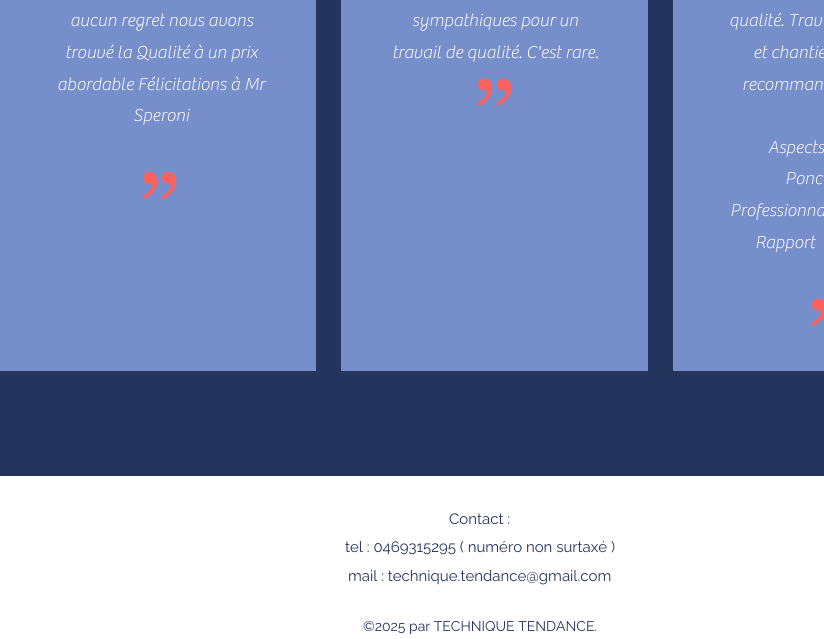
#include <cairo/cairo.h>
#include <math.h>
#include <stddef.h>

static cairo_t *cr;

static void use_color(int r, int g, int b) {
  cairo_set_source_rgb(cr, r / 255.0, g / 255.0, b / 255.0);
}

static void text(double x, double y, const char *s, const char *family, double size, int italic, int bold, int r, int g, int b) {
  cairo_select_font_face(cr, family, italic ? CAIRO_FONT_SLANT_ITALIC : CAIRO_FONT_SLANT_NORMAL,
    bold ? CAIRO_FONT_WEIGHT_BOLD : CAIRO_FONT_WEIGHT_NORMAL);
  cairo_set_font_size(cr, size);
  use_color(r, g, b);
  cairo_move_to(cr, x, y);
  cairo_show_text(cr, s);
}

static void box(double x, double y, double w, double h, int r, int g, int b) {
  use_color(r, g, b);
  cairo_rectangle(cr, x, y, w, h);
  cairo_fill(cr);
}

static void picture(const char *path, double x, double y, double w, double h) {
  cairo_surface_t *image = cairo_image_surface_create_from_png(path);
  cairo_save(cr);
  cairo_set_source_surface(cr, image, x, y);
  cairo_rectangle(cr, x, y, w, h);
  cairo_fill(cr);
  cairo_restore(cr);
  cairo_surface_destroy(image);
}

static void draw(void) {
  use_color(36, 52, 92);
  cairo_paint(cr);
  box(0, 0, 316, 371, 118, 142, 201);
  picture("img_01.png", 142, 171, 34, 29);
  box(341, 0, 307, 371, 118, 142, 201);
  picture("img_02.png", 477, 78, 34, 28);
  box(673, 0, 151, 371, 118, 142, 201);
  picture("img_03.png", 811, 298, 13, 28);
  box(0, 476, 824, 163, 255, 255, 255);
  text(70, 26, "aucun regret nous avons", "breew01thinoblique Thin", 18, 0, 0, 255, 255, 255);
  text(65, 58, "trouvé la Qualité à un prix", "breew01thinoblique Thin", 18, 0, 0, 255, 255, 255);
  text(57, 90, "abordable Félicitations à Mr", "breew01thinoblique Thin", 18, 0, 0, 255, 255, 255);
  text(133, 121, "Speroni", "breew01thinoblique Thin", 18, 0, 0, 255, 255, 255);
  text(412, 26, "sympathiques pour un", "breew01thinoblique Thin", 18, 0, 0, 255, 255, 255);
  text(392, 58, "travail de qualité. C'est rare.", "breew01thinoblique Thin", 18, 0, 0, 255, 255, 255);
  text(729, 26, "qualité. Trav", "breew01thinoblique Thin", 18, 0, 0, 255, 255, 255);
  text(753, 58, "et chantie", "breew01thinoblique Thin", 18, 0, 0, 255, 255, 255);
  text(742, 90, "recomman", "breew01thinoblique Thin", 18, 0, 0, 255, 255, 255);
  text(768, 153, "Aspects", "breew01thinoblique Thin", 18, 0, 0, 255, 255, 255);
  text(785, 184, "Ponc", "breew01thinoblique Thin", 18, 0, 0, 255, 255, 255);
  text(730, 216, "Professionna", "breew01thinoblique Thin", 18, 0, 0, 255, 255, 255);
  text(755, 248, "Rapport", "breew01thinoblique Thin", 18, 0, 0, 255, 255, 255);
  text(449, 524, "Contact :", "Raleway", 15, 0, 0, 36, 52, 92);
  text(345, 552, "tel : 0469315295 ( numéro non surtaxé )", "Raleway", 15, 0, 0, 36, 52, 92);
  text(348, 581, "mail : technique.tendance@gmail.com", "Raleway", 15, 0, 0, 36, 52, 92);
  text(363, 631, "©2025 par TECHNIQUE TENDANCE.", "Raleway", 14, 0, 0, 36, 52, 92);
}

int main(void) {
  cairo_surface_t *surface = cairo_image_surface_create(CAIRO_FORMAT_RGB24, 824, 639);
  cr = cairo_create(surface);
  cairo_font_options_t *options = cairo_font_options_create();
  cairo_font_options_set_hint_metrics(options, CAIRO_HINT_METRICS_OFF);
  cairo_font_options_set_hint_style(options, CAIRO_HINT_STYLE_NONE);
  cairo_set_font_options(cr, options);
  cairo_set_miter_limit(cr, 4);
  draw();
  cairo_surface_write_to_png(surface, "out.png");
  cairo_font_options_destroy(options);
  cairo_destroy(cr);
  cairo_surface_destroy(surface);
  return 0;
}
